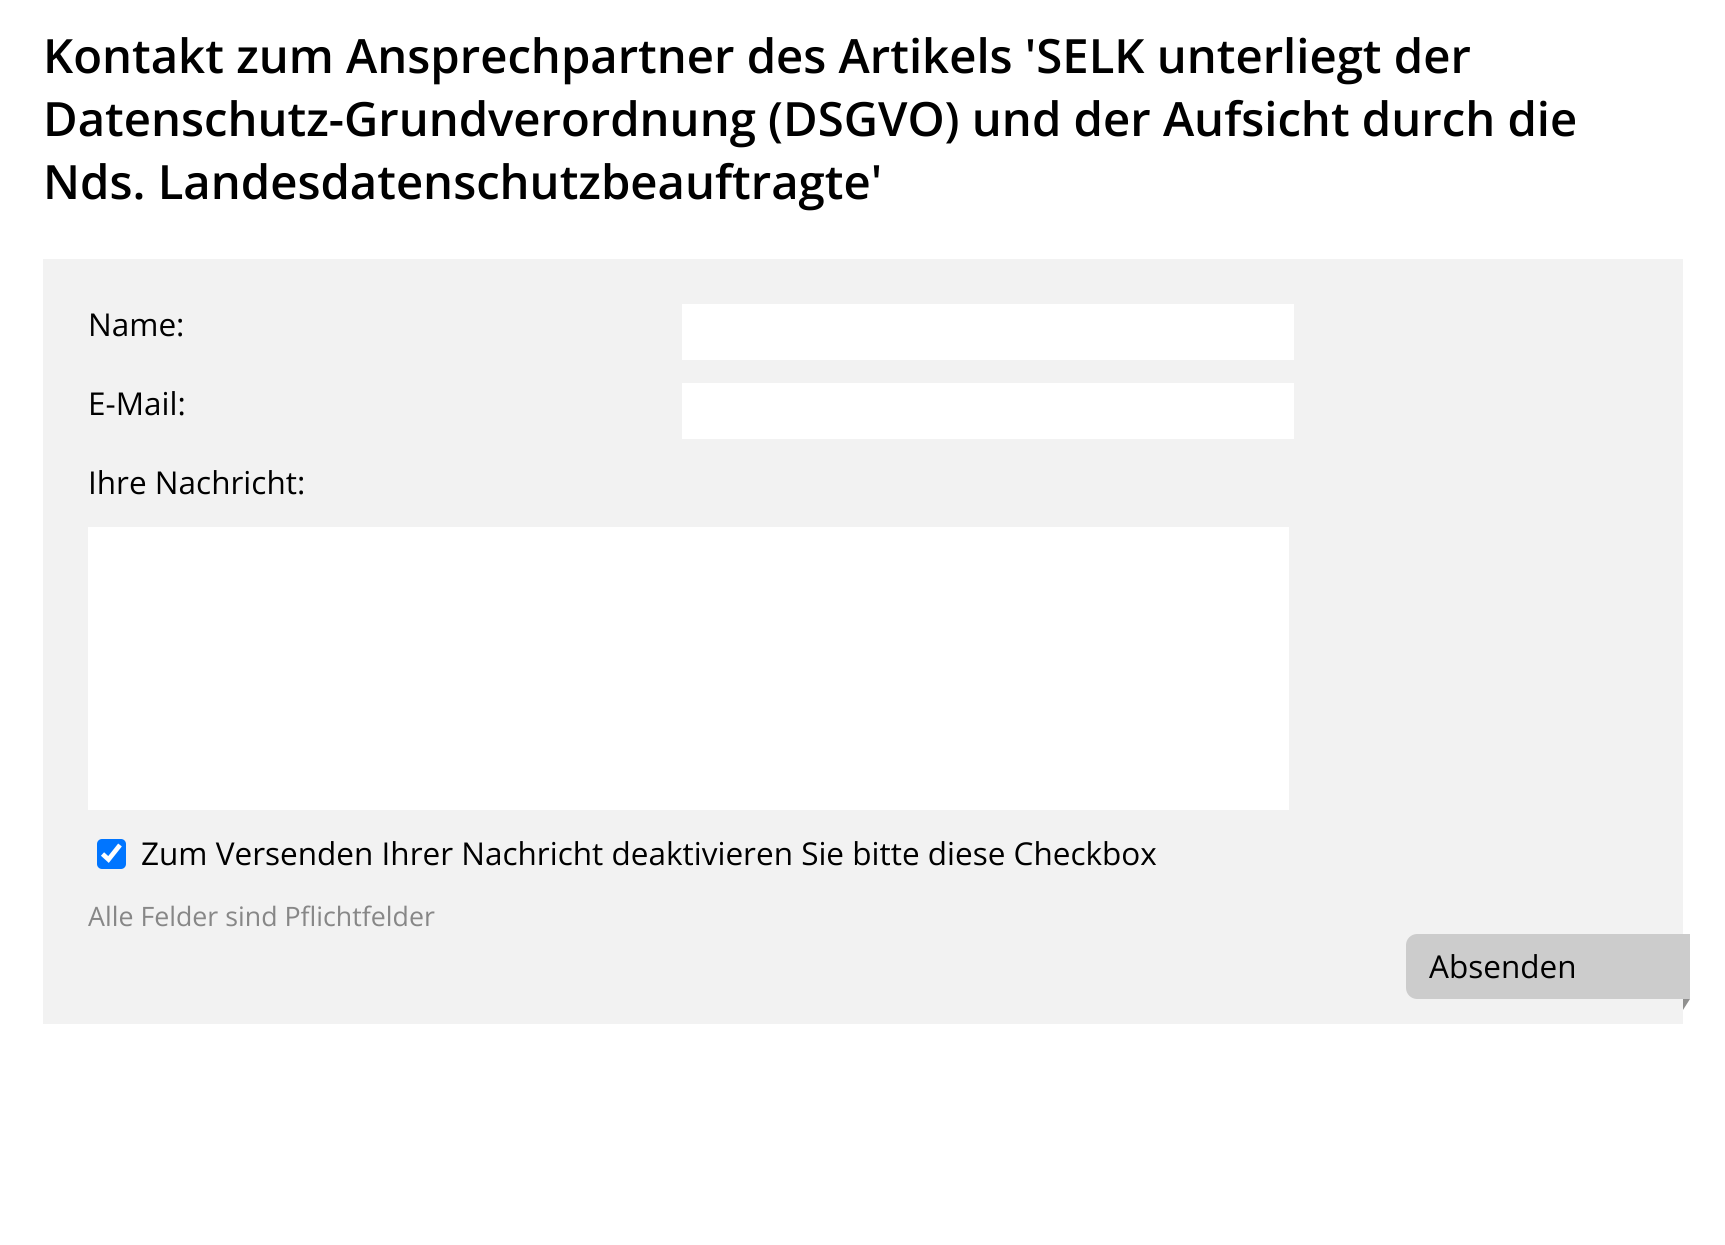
#include <cairo/cairo.h>
#include <math.h>
#include <stddef.h>

static cairo_t *cr;

static void use_color(int r, int g, int b) {
  cairo_set_source_rgb(cr, r / 255.0, g / 255.0, b / 255.0);
}

static void text(double x, double y, const char *s, const char *family, double size, int italic, int bold, int r, int g, int b) {
  cairo_select_font_face(cr, family, italic ? CAIRO_FONT_SLANT_ITALIC : CAIRO_FONT_SLANT_NORMAL,
    bold ? CAIRO_FONT_WEIGHT_BOLD : CAIRO_FONT_WEIGHT_NORMAL);
  cairo_set_font_size(cr, size);
  use_color(r, g, b);
  cairo_move_to(cr, x, y);
  cairo_show_text(cr, s);
}

static void box(double x, double y, double w, double h, int r, int g, int b) {
  use_color(r, g, b);
  cairo_rectangle(cr, x, y, w, h);
  cairo_fill(cr);
}

static void round_rect(double x, double y, double w, double h, double r) {
  cairo_new_sub_path(cr);
  cairo_arc(cr, x + w - r, y + h - r, r, 0, M_PI / 2);
  cairo_arc(cr, x + r, y + h - r, r, M_PI / 2, M_PI);
  cairo_arc(cr, x + r, y + r, r, M_PI, 1.5 * M_PI);
  cairo_arc(cr, x + w - r, y + r, r, 1.5 * M_PI, 2 * M_PI);
  cairo_close_path(cr);
}

static void draw(void) {
  use_color(255, 255, 255);
  cairo_paint(cr);
  box(43, 259, 1640, 765, 242, 242, 242);
  box(682, 304, 612, 56, 255, 255, 255);
  box(682, 383, 612, 56, 255, 255, 255);
  box(88, 527, 1201, 283, 255, 255, 255);
  use_color(0, 117, 255);
  round_rect(97, 839, 29, 30, 5);
  cairo_fill(cr);
  cairo_new_path(cr);
  cairo_move_to(cr, 102.5, 854);
  cairo_line_to(cr, 108.5, 859.5);
  cairo_line_to(cr, 120, 845);
  use_color(255, 255, 255);
  cairo_set_line_width(cr, 4.7);
  cairo_stroke(cr);
  use_color(204, 204, 204);
  cairo_new_path(cr);
  cairo_move_to(cr, 1417, 934);
  cairo_line_to(cr, 1690, 934);
  cairo_line_to(cr, 1690, 999);
  cairo_line_to(cr, 1417, 999);
  cairo_curve_to(cr, 1411, 999, 1406, 994, 1406, 988);
  cairo_line_to(cr, 1406, 945);
  cairo_curve_to(cr, 1406, 939, 1411, 934, 1417, 934);
  cairo_close_path(cr);
  cairo_fill(cr);
  use_color(144, 144, 143);
  cairo_new_path(cr);
  cairo_move_to(cr, 1683, 1010);
  cairo_line_to(cr, 1683, 999);
  cairo_line_to(cr, 1690, 999);
  cairo_close_path(cr);
  cairo_fill(cr);
  text(43, 73, "Kontakt zum Ansprechpartner des Artikels 'SELK unterliegt der", "Open Sans SemiBold", 47.25, 0, 0, 0, 0, 0);
  text(43, 136, "Datenschutz-Grundverordnung (DSGVO) und der Aufsicht durch die", "Open Sans SemiBold", 47.25, 0, 0, 0, 0, 0);
  text(43, 199, "Nds. Landesdatenschutzbeauftragte'", "Open Sans SemiBold", 47.25, 0, 0, 0, 0, 0);
  text(88, 336, "Name:", "Open Sans", 31.5, 0, 0, 0, 0, 0);
  text(88, 415, "E-Mail:", "Open Sans", 31.5, 0, 0, 0, 0, 0);
  text(88, 494, "Ihre Nachricht:", "Open Sans", 31.5, 0, 0, 0, 0, 0);
  text(141, 865, "Zum Versenden Ihrer Nachricht deaktivieren Sie bitte diese Checkbox", "Open Sans", 31.5, 0, 0, 0, 0, 0);
  text(88, 926, "Alle Felder sind Pflichtfelder", "Open Sans", 26.75, 0, 0, 135, 135, 135);
  text(1429, 978, "Absenden", "Open Sans", 31.5, 0, 0, 0, 0, 0);
}

int main(void) {
  cairo_surface_t *surface = cairo_image_surface_create(CAIRO_FORMAT_RGB24, 1725, 1245);
  cr = cairo_create(surface);
  cairo_font_options_t *options = cairo_font_options_create();
  cairo_font_options_set_hint_metrics(options, CAIRO_HINT_METRICS_OFF);
  cairo_font_options_set_hint_style(options, CAIRO_HINT_STYLE_NONE);
  cairo_set_font_options(cr, options);
  cairo_set_miter_limit(cr, 4);
  draw();
  cairo_surface_write_to_png(surface, "out.png");
  cairo_font_options_destroy(options);
  cairo_destroy(cr);
  cairo_surface_destroy(surface);
  return 0;
}
